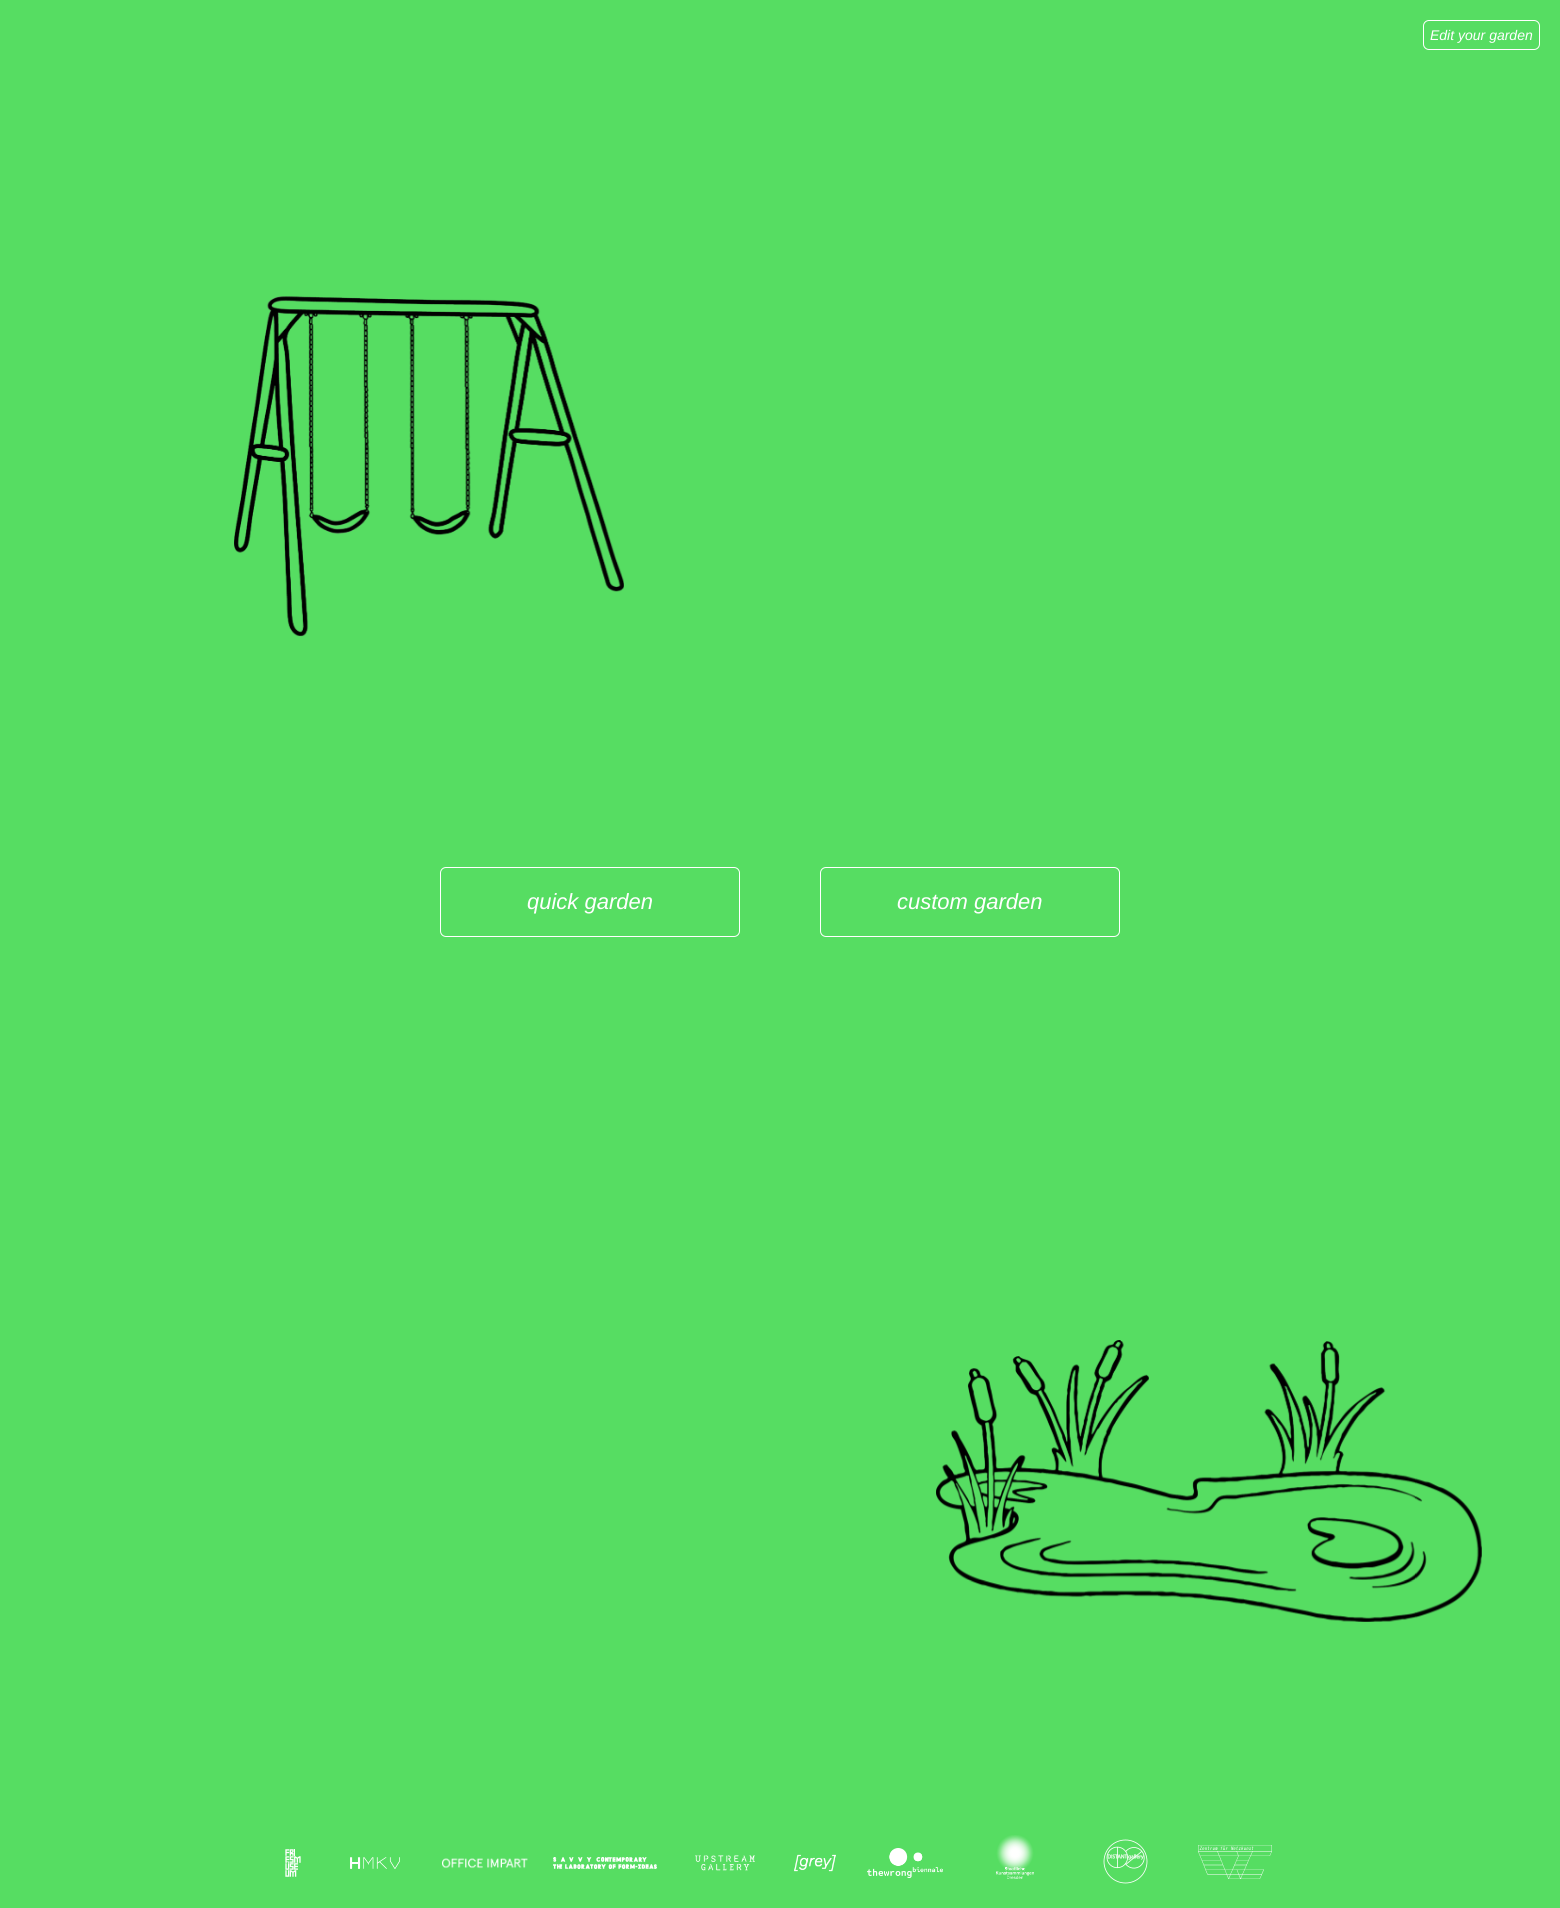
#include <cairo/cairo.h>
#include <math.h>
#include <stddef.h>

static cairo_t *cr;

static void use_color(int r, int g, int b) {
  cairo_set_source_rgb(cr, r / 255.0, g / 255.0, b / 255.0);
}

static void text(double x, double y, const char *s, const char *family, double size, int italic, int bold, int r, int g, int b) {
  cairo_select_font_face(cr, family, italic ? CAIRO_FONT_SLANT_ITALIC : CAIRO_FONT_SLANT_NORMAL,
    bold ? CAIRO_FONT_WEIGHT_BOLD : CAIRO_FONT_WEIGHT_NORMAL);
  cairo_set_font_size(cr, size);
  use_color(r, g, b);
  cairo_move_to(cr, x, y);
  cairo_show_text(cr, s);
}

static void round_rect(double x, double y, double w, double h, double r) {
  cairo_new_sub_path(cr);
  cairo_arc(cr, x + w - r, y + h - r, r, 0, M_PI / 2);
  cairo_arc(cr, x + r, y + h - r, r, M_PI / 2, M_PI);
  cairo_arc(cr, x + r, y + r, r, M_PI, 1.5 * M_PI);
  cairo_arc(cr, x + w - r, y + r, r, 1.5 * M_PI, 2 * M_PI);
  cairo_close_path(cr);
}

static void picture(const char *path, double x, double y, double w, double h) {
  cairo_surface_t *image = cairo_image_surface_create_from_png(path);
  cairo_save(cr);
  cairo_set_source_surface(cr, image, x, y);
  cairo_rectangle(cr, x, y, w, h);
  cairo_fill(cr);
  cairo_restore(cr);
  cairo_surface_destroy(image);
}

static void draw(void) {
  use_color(86, 221, 98);
  cairo_paint(cr);
  picture("img_01.png", 234, 296, 390, 341);
  round_rect(1423.5, 20.5, 116, 29, 5.5);
  use_color(255, 255, 255);
  cairo_set_line_width(cr, 1);
  cairo_stroke(cr);
  round_rect(440.5, 867.5, 299, 69, 5.5);
  cairo_stroke(cr);
  round_rect(820.5, 867.5, 299, 69, 5.5);
  cairo_stroke(cr);
  picture("img_02.png", 936, 1340, 546, 282);
  picture("img_03.png", 285, 1849, 16, 28);
  picture("img_04.png", 350, 1857, 50, 12);
  picture("img_05.png", 442, 1858, 86, 11);
  picture("img_06.png", 553, 1857, 104, 12);
  picture("img_07.png", 695, 1855, 60, 16);
  picture("img_08.png", 794, 1854, 42, 18);
  picture("img_09.png", 867, 1848, 76, 30);
  picture("img_10.png", 996, 1835, 38, 44);
  picture("img_11.png", 1103, 1839, 45, 45);
  picture("img_12.png", 1198, 1845, 74, 34);
  text(1430, 40, "Edit your garden", "Liberation Sans", 14, 1, 0, 255, 255, 255);
  text(527, 909, "quick garden", "Liberation Sans", 22, 1, 0, 255, 255, 255);
  text(897, 909, "custom garden", "Liberation Sans", 22, 1, 0, 255, 255, 255);
}

int main(void) {
  cairo_surface_t *surface = cairo_image_surface_create(CAIRO_FORMAT_RGB24, 1560, 1908);
  cr = cairo_create(surface);
  cairo_font_options_t *options = cairo_font_options_create();
  cairo_font_options_set_hint_metrics(options, CAIRO_HINT_METRICS_OFF);
  cairo_font_options_set_hint_style(options, CAIRO_HINT_STYLE_NONE);
  cairo_set_font_options(cr, options);
  cairo_set_miter_limit(cr, 4);
  draw();
  cairo_surface_write_to_png(surface, "out.png");
  cairo_font_options_destroy(options);
  cairo_destroy(cr);
  cairo_surface_destroy(surface);
  return 0;
}
